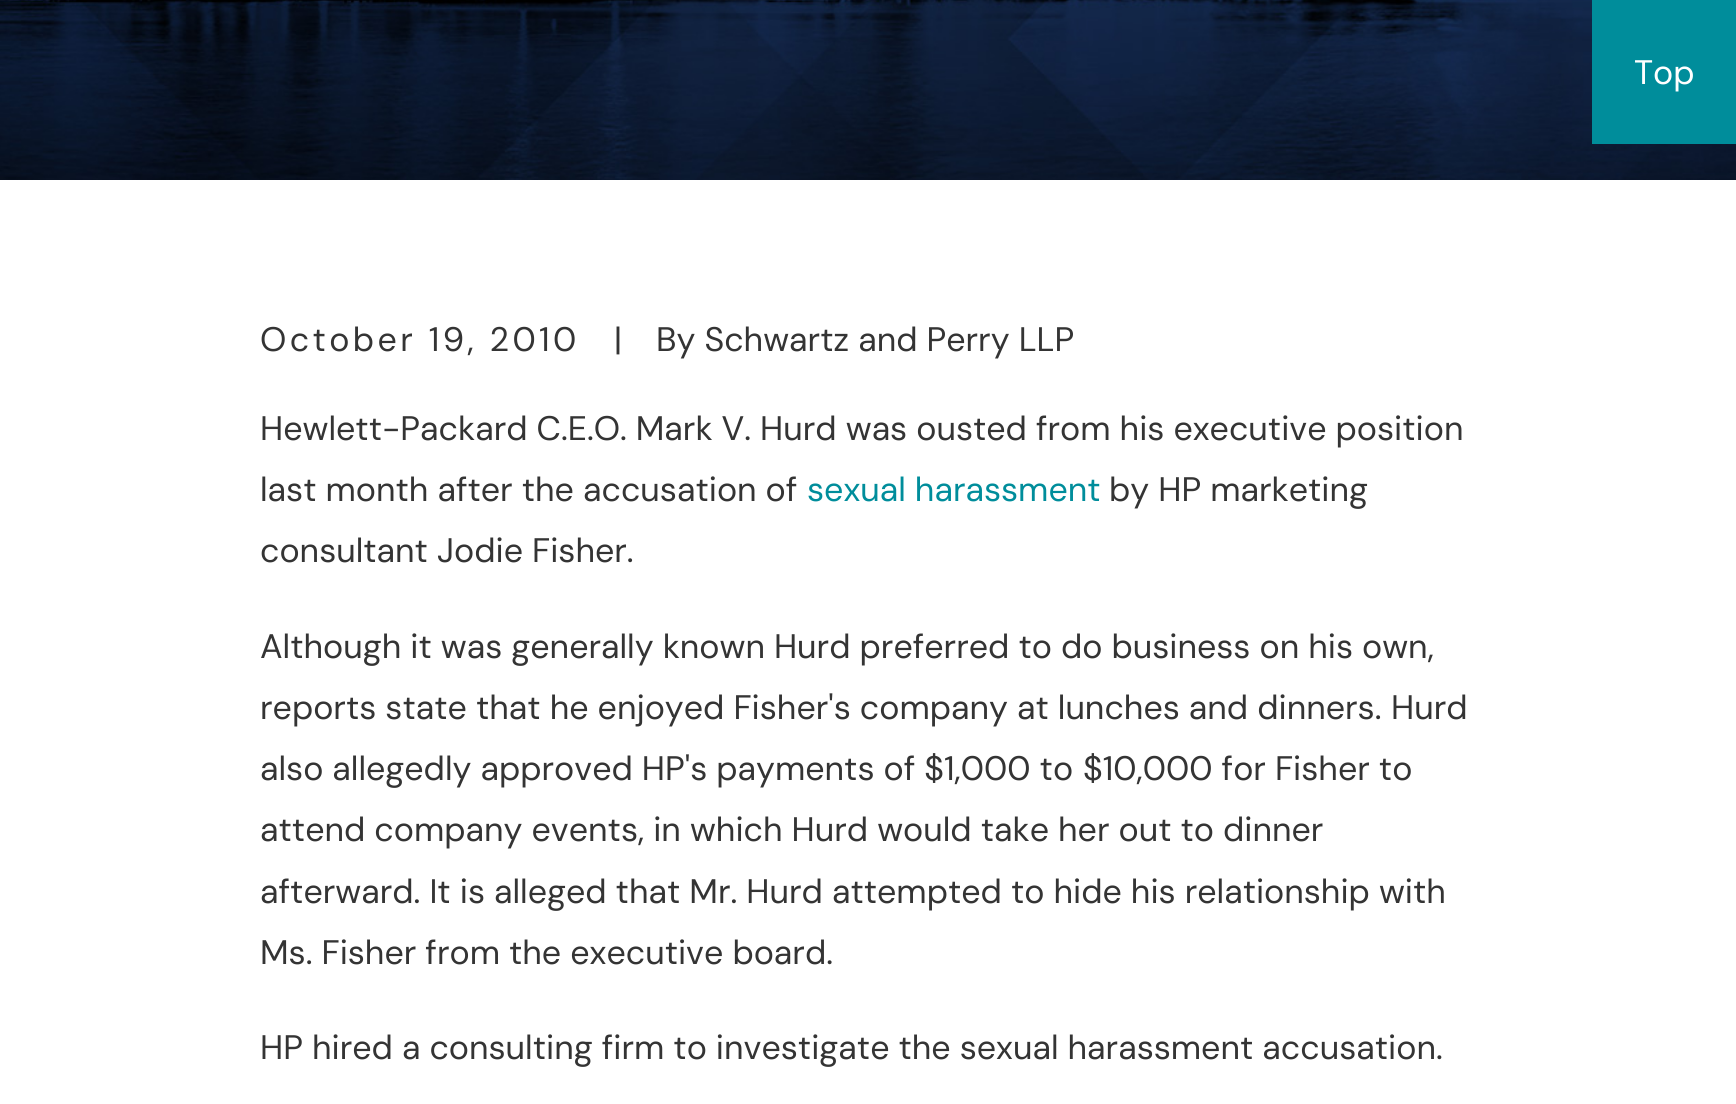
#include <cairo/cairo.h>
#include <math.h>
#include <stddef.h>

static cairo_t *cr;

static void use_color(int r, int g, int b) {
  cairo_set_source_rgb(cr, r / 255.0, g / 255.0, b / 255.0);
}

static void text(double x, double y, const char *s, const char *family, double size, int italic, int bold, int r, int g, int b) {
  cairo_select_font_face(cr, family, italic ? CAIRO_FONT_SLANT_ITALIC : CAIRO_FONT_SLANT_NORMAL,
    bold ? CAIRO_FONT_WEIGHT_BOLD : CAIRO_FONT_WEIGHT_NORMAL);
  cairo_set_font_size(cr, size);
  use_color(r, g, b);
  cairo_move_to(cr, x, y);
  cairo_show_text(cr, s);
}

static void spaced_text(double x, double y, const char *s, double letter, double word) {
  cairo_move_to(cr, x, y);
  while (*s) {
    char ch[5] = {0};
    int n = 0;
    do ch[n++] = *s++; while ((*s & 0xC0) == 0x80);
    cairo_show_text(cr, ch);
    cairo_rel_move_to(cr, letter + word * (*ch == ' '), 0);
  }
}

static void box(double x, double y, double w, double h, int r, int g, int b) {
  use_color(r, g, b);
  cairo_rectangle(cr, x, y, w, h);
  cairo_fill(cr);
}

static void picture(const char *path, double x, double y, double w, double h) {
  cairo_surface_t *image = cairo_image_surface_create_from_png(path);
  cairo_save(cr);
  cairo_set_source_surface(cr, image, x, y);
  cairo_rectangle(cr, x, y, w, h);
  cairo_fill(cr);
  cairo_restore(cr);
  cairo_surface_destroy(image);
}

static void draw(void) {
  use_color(255, 255, 255);
  cairo_paint(cr);
  picture("img_01.png", 0, 0, 1736, 180);
  box(1592, 0, 144, 144, 0, 141, 155);
  text(1634, 84, "Top", "DM Sans", 34, 0, 0, 255, 255, 255);
  use_color(52, 52, 52);
  spaced_text(260, 351, "October 19, 2010", 3.4, 0);
  text(614, 351, "|", "DM Sans", 34, 0, 0, 52, 52, 52);
  text(656, 351, "By Schwartz and Perry LLP", "DM Sans", 34, 0, 0, 52, 52, 52);
  text(260, 440, "Hewlett-Packard C.E.O. Mark V. Hurd was ousted from his executive position", "DM Sans", 34, 0, 0, 52, 52, 52);
  text(260, 501, "last month after the accusation of", "DM Sans", 34, 0, 0, 52, 52, 52);
  text(807, 501, "sexual harassment", "DM Sans", 34, 0, 0, 0, 141, 155);
  text(1109, 501, "by HP marketing", "DM Sans", 34, 0, 0, 52, 52, 52);
  text(260, 562, "consultant Jodie Fisher.", "DM Sans", 34, 0, 0, 52, 52, 52);
  text(260, 658, "Although it was generally known Hurd preferred to do business on his own,", "DM Sans", 34, 0, 0, 52, 52, 52);
  text(260, 719, "reports state that he enjoyed Fisher's company at lunches and dinners.", "DM Sans", 34, 0, 0, 52, 52, 52);
  text(1391, 719, "Hurd", "DM Sans", 34, 0, 0, 52, 52, 52);
  text(260, 780, "also allegedly approved HP's payments of $1,000 to", "DM Sans", 34, 0, 0, 52, 52, 52);
  text(1083, 780, "$10,000 for Fisher to", "DM Sans", 34, 0, 0, 52, 52, 52);
  text(260, 841, "attend company events, in which Hurd would take her out to dinner", "DM Sans", 34, 0, 0, 52, 52, 52);
  text(260, 903, "afterward. It is alleged that Mr. Hurd attempted to hide his relationship with", "DM Sans", 34, 0, 0, 52, 52, 52);
  text(260, 964, "Ms. Fisher from the executive board.", "DM Sans", 34, 0, 0, 52, 52, 52);
  text(260, 1059, "HP hired a consulting firm to investigate the sexual harassment accusation.", "DM Sans", 34, 0, 0, 52, 52, 52);
}

int main(void) {
  cairo_surface_t *surface = cairo_image_surface_create(CAIRO_FORMAT_RGB24, 1736, 1104);
  cr = cairo_create(surface);
  cairo_font_options_t *options = cairo_font_options_create();
  cairo_font_options_set_hint_metrics(options, CAIRO_HINT_METRICS_OFF);
  cairo_font_options_set_hint_style(options, CAIRO_HINT_STYLE_NONE);
  cairo_set_font_options(cr, options);
  cairo_set_miter_limit(cr, 4);
  draw();
  cairo_surface_write_to_png(surface, "out.png");
  cairo_font_options_destroy(options);
  cairo_destroy(cr);
  cairo_surface_destroy(surface);
  return 0;
}
